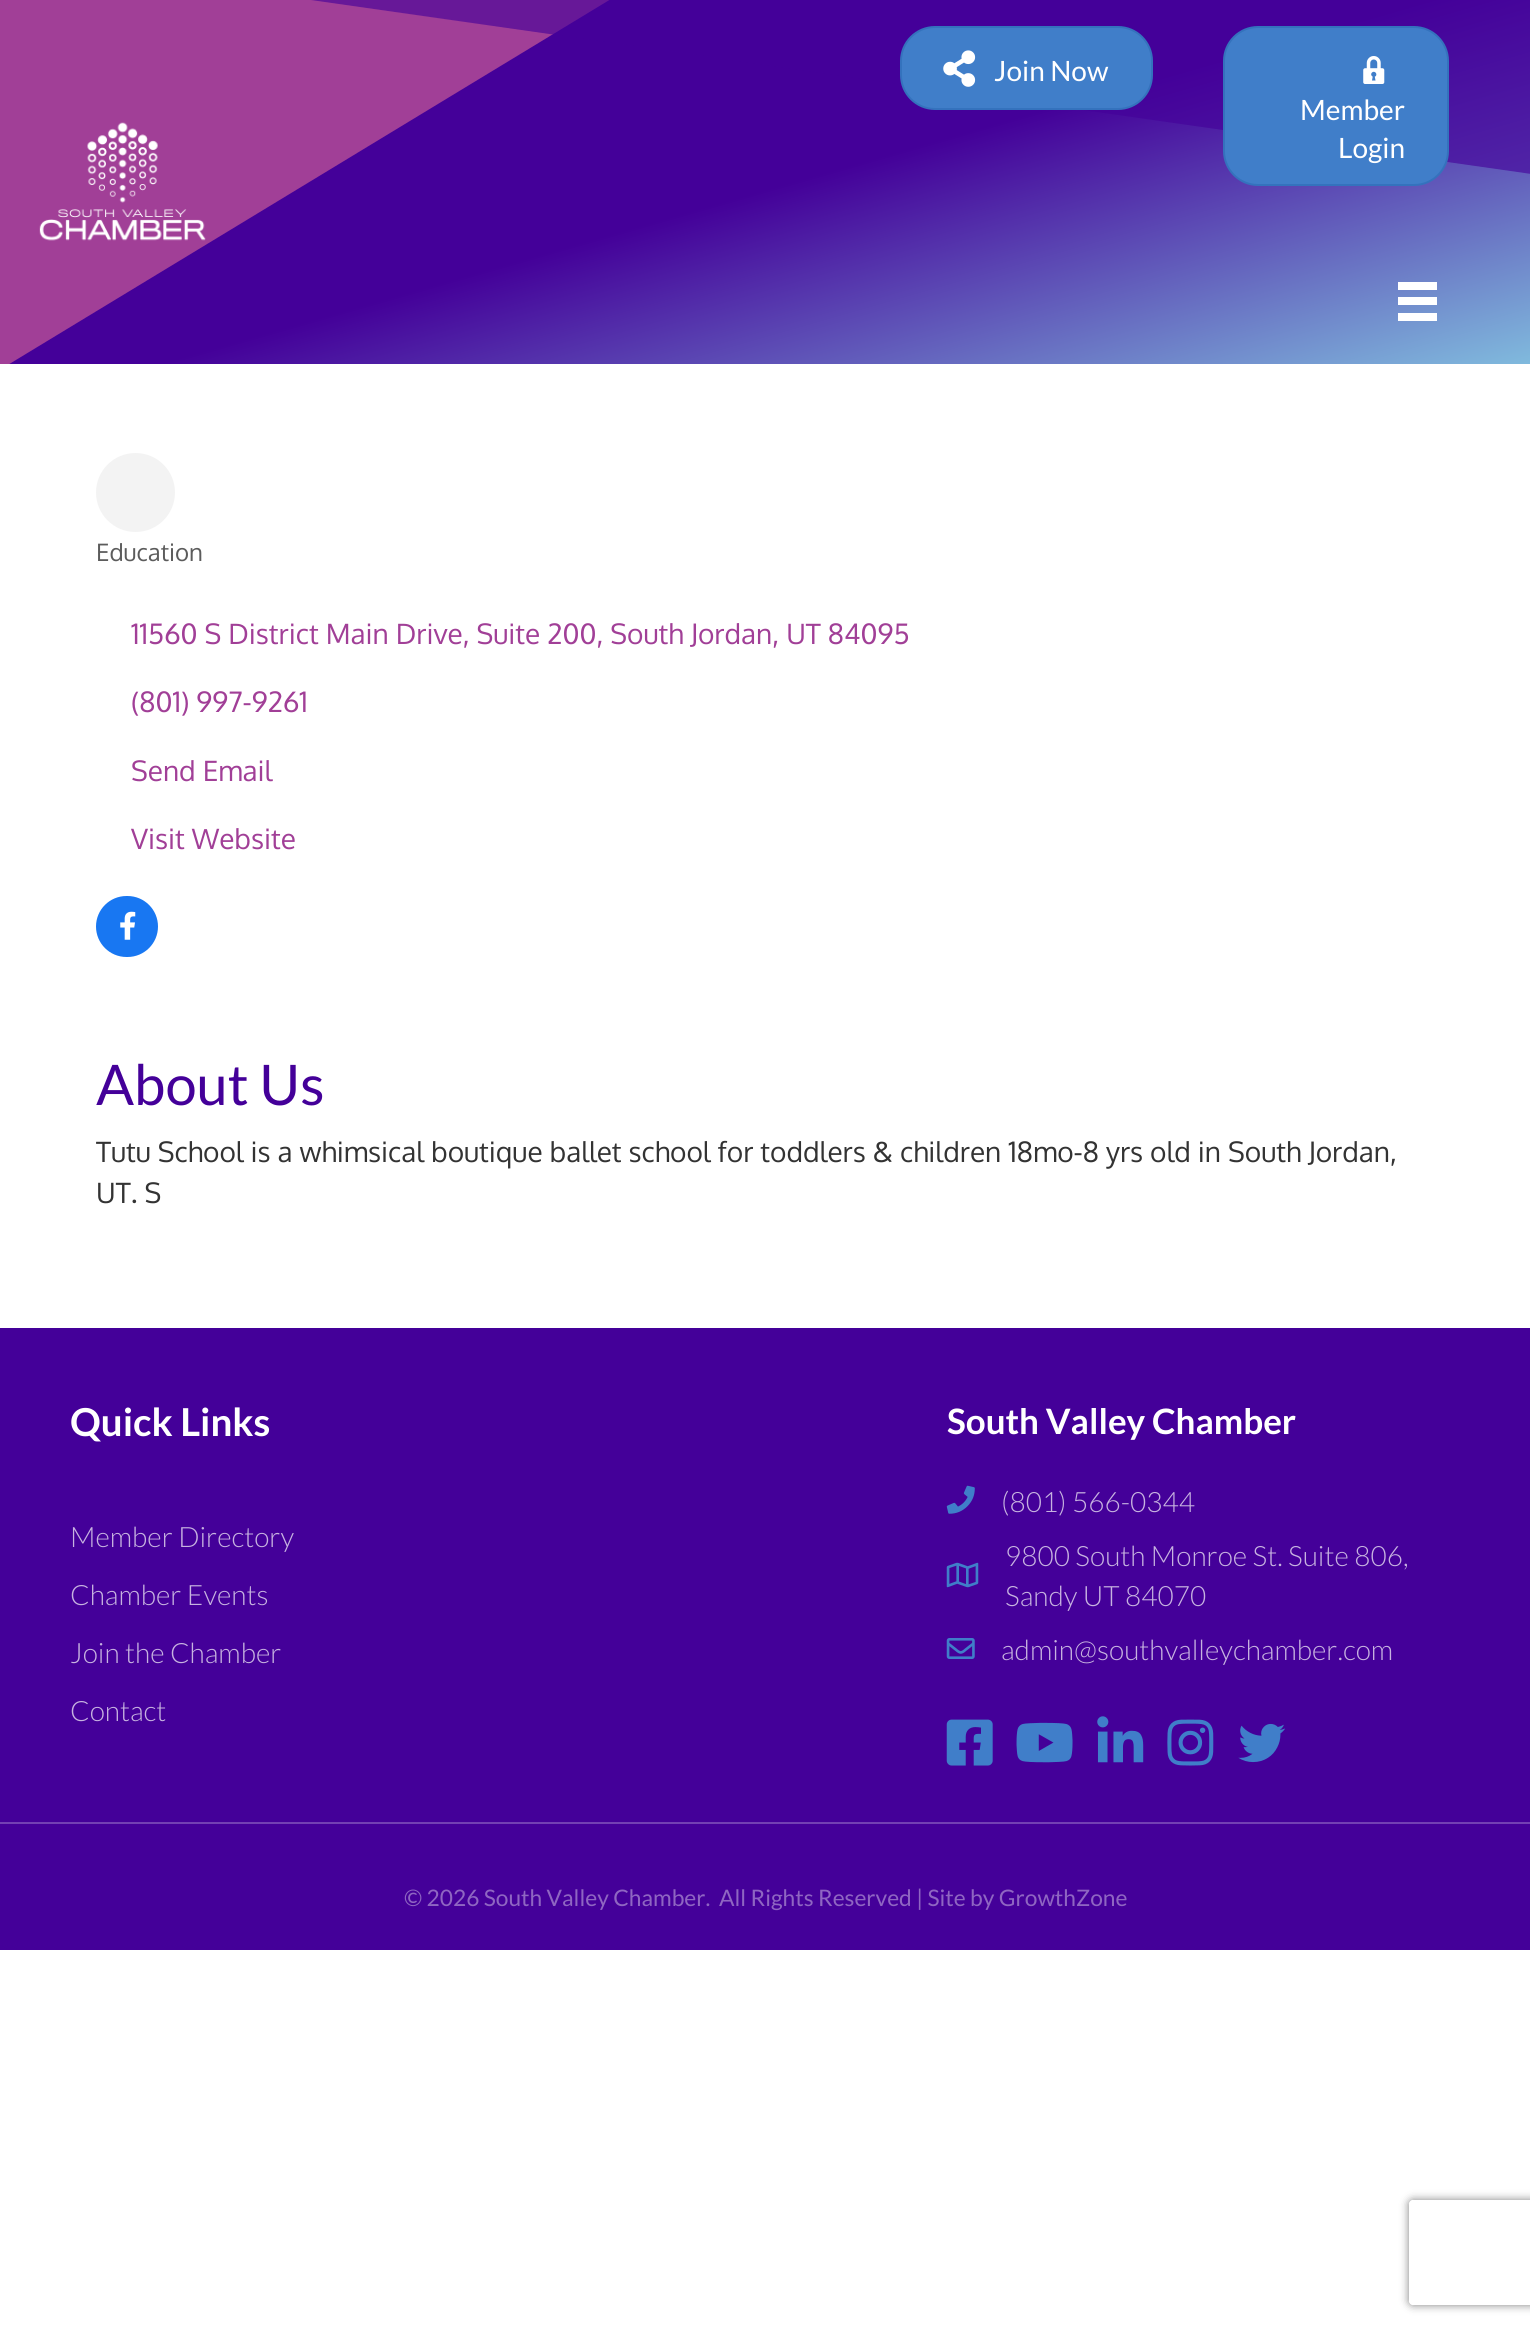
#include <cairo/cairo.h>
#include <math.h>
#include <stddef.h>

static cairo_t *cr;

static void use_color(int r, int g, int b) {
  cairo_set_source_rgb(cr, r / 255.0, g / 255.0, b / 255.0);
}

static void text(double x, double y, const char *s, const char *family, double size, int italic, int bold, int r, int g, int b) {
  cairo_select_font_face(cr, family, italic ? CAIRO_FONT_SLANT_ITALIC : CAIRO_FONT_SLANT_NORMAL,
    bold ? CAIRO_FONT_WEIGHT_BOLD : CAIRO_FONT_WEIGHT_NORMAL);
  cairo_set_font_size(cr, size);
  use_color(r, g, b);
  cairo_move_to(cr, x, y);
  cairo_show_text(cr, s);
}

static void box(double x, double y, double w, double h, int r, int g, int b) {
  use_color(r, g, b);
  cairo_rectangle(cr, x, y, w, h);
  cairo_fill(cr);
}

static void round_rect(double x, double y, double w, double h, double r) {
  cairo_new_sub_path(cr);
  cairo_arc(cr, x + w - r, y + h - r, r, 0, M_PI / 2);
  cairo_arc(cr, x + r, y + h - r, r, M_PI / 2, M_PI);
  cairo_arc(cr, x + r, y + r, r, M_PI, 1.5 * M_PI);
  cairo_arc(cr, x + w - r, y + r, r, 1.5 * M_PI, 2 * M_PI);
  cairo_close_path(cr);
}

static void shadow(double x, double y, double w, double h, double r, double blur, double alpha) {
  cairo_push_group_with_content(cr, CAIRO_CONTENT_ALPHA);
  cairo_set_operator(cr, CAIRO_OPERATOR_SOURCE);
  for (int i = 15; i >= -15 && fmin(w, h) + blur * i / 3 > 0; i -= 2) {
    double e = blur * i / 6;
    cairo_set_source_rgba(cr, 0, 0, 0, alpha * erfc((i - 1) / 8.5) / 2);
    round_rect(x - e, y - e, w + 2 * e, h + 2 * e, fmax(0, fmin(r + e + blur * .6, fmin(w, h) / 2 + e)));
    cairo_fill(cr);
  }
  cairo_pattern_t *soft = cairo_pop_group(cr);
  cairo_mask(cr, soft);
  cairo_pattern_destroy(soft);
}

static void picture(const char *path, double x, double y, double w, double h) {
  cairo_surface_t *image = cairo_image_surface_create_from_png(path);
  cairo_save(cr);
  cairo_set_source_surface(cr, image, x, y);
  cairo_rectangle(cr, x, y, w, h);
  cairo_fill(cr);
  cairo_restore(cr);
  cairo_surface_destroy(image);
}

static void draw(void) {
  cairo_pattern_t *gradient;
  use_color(255, 255, 255);
  cairo_paint(cr);
  gradient = cairo_pattern_create_linear(872, 553, 659, -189);
  cairo_pattern_add_color_stop_rgba(gradient, 0, 0.502, 0.729, 0.867, 1);
  cairo_pattern_add_color_stop_rgba(gradient, 0.49, 0.267, 0, 0.6, 1);
  cairo_set_source(cr, gradient);
  cairo_pattern_destroy(gradient);
  cairo_rectangle(cr, 9, 0, 1521, 364);
  cairo_fill(cr);
  cairo_save(cr);
  cairo_rectangle(cr, 0, 0, 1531, 364);
  cairo_clip(cr);
  gradient = cairo_pattern_create_linear(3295, -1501, 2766, -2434);
  cairo_pattern_add_color_stop_rgba(gradient, 0.57, 0.631, 0.247, 0.592, 1);
  cairo_pattern_add_color_stop_rgba(gradient, 1, 0.408, 0.231, 0.584, 1);
  cairo_set_source(cr, gradient);
  cairo_pattern_destroy(gradient);
  cairo_new_path(cr);
  cairo_move_to(cr, -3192, 2306);
  cairo_line_to(cr, 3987, -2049);
  cairo_line_to(cr, 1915, -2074);
  cairo_line_to(cr, -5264, 2281);
  cairo_line_to(cr, -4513, 2290);
  cairo_close_path(cr);
  cairo_fill(cr);
  cairo_restore(cr);
  gradient = cairo_pattern_create_linear(1488, 1128, 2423, -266);
  cairo_pattern_add_color_stop_rgba(gradient, 0.66, 0.267, 0, 0.6, 0.62);
  cairo_pattern_add_color_stop_rgba(gradient, 1, 0.063, 0.294, 0.561, 1);
  cairo_set_source(cr, gradient);
  cairo_pattern_destroy(gradient);
  cairo_new_path(cr);
  cairo_move_to(cr, 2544, -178);
  cairo_line_to(cr, 1501, -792);
  cairo_line_to(cr, -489, -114);
  cairo_line_to(cr, 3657, 477);
  cairo_close_path(cr);
  cairo_fill(cr);
  picture("img_01.png", 39, 122, 167, 119);
  use_color(64, 126, 201);
  round_rect(901, 27, 251, 82, 34);
  cairo_fill_preserve(cr);
  use_color(52, 114, 189);
  cairo_stroke(cr);
  picture("img_02.png", 943, 50, 33, 37);
  use_color(64, 126, 201);
  round_rect(1224, 27, 224, 158, 34);
  cairo_fill_preserve(cr);
  use_color(52, 114, 189);
  cairo_stroke(cr);
  picture("img_03.png", 1363, 56, 22, 28);
  box(1398, 282, 39, 8, 255, 255, 255);
  box(1398, 297, 39, 8, 255, 255, 255);
  box(1398, 313, 39, 8, 255, 255, 255);
  use_color(243, 243, 243);
  cairo_arc(cr, 135.5, 492.5, 39.5, 0, 2 * M_PI);
  cairo_fill(cr);
  use_color(24, 119, 242);
  round_rect(96, 896, 62, 61, 30.5);
  cairo_fill(cr);
  picture("img_04.png", 120, 911, 16, 29);
  box(0, 1328, 1530, 494, 68, 0, 153);
  box(0, 1822, 1530, 2, 115, 64, 179);
  picture("img_05.png", 946, 1485, 29, 29);
  picture("img_06.png", 946, 1562, 33, 26);
  picture("img_07.png", 946, 1638, 29, 21);
  picture("img_08.png", 946, 1719, 47, 47);
  picture("img_09.png", 1016, 1722, 57, 41);
  picture("img_10.png", 1097, 1716, 47, 47);
  picture("img_11.png", 1167, 1719, 47, 47);
  picture("img_12.png", 1238, 1723, 47, 40);
  box(0, 1824, 1530, 126, 68, 0, 153);
  cairo_save(cr);
  cairo_set_fill_rule(cr, CAIRO_FILL_RULE_EVEN_ODD);
  cairo_new_path(cr);
  cairo_move_to(cr, 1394, 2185);
  cairo_line_to(cr, 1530, 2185);
  cairo_line_to(cr, 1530, 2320);
  cairo_line_to(cr, 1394, 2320);
  cairo_close_path(cr);
  cairo_move_to(cr, 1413, 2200);
  cairo_line_to(cr, 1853, 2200);
  cairo_curve_to(cr, 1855, 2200, 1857, 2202, 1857, 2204);
  cairo_line_to(cr, 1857, 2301);
  cairo_curve_to(cr, 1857, 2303, 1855, 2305, 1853, 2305);
  cairo_line_to(cr, 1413, 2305);
  cairo_curve_to(cr, 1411, 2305, 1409, 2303, 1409, 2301);
  cairo_line_to(cr, 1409, 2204);
  cairo_curve_to(cr, 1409, 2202, 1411, 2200, 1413, 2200);
  cairo_close_path(cr);
  cairo_clip(cr);
  use_color(128, 128, 128);
  shadow(1409, 2200, 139, 105, 4, 4.5, 1);
  cairo_restore(cr);
  text(994, 81, "Join Now", "Lato", 28, 0, 0, 255, 255, 255);
  text(1300, 120, "Member", "Lato", 28, 0, 0, 255, 255, 255);
  text(1338, 158, "Login", "Lato", 28, 0, 0, 255, 255, 255);
  text(96, 561, "Education", "Oxygen", 24, 0, 0, 92, 92, 92);
  text(131, 644, "11560 S District Main Drive, Suite 200, South Jordan, UT 84095", "Oxygen", 28, 0, 0, 161, 63, 151);
  text(131, 712, "(801) 997-9261", "Oxygen", 28, 0, 0, 161, 63, 151);
  text(131, 781, "Send Email", "Oxygen", 28, 0, 0, 161, 63, 151);
  text(131, 849, "Visit Website", "Oxygen", 28, 0, 0, 161, 63, 151);
  text(96, 1105, "About Us", "Lato", 56, 0, 0, 68, 0, 153);
  text(96, 1162, "Tutu School is a whimsical boutique ballet school for toddlers & children 18mo-8 yrs old in South Jordan,", "Oxygen", 28, 0, 0, 51, 51, 51);
  text(96, 1203, "UT. S", "Oxygen", 28, 0, 0, 51, 51, 51);
  text(70, 1436, "Quick Links", "Lato", 38.5, 0, 1, 255, 255, 255);
  text(70, 1547, "Member Directory", "Lato Light", 28, 0, 0, 199, 179, 224);
  text(70, 1605, "Chamber Events", "Lato Light", 28, 0, 0, 199, 179, 224);
  text(70, 1663, "Join the Chamber", "Lato Light", 28, 0, 0, 199, 179, 224);
  text(70, 1721, "Contact", "Lato Light", 28, 0, 0, 199, 179, 224);
  text(947, 1434, "South Valley Chamber", "Lato", 35, 0, 1, 255, 255, 255);
  text(1001, 1512, "(801) 566-0344", "Lato Light", 28, 0, 0, 199, 179, 224);
  text(1005, 1566, "9800 South Monroe St. Suite 806,", "Lato Light", 28, 0, 0, 199, 179, 224);
  text(1005, 1606, "Sandy UT 84070", "Lato Light", 28, 0, 0, 199, 179, 224);
  text(1001, 1660, "admin@southvalleychamber.com", "Lato Light", 28, 0, 0, 199, 179, 224);
  text(404, 1906, "© 2026 South Valley Chamber.", "Lato", 22.75, 0, 0, 143, 102, 194);
  text(719, 1906, "All Rights Reserved | Site by GrowthZone", "Lato", 22.75, 0, 0, 143, 102, 194);
}

int main(void) {
  cairo_surface_t *surface = cairo_image_surface_create(CAIRO_FORMAT_RGB24, 1530, 2329);
  cr = cairo_create(surface);
  cairo_font_options_t *options = cairo_font_options_create();
  cairo_font_options_set_hint_metrics(options, CAIRO_HINT_METRICS_OFF);
  cairo_font_options_set_hint_style(options, CAIRO_HINT_STYLE_NONE);
  cairo_set_font_options(cr, options);
  cairo_set_miter_limit(cr, 4);
  draw();
  cairo_surface_write_to_png(surface, "out.png");
  cairo_font_options_destroy(options);
  cairo_destroy(cr);
  cairo_surface_destroy(surface);
  return 0;
}
